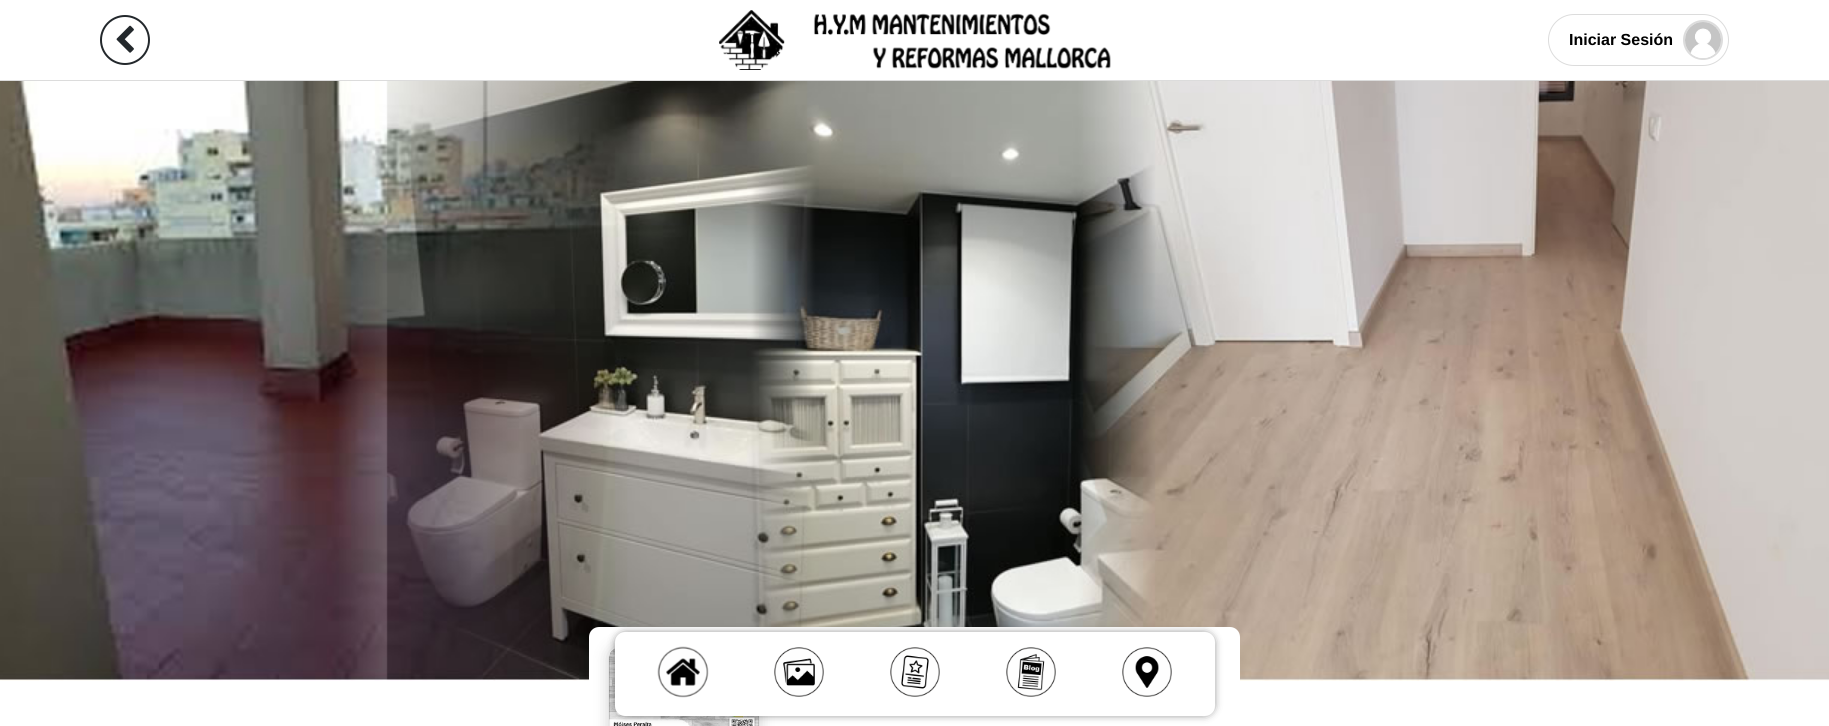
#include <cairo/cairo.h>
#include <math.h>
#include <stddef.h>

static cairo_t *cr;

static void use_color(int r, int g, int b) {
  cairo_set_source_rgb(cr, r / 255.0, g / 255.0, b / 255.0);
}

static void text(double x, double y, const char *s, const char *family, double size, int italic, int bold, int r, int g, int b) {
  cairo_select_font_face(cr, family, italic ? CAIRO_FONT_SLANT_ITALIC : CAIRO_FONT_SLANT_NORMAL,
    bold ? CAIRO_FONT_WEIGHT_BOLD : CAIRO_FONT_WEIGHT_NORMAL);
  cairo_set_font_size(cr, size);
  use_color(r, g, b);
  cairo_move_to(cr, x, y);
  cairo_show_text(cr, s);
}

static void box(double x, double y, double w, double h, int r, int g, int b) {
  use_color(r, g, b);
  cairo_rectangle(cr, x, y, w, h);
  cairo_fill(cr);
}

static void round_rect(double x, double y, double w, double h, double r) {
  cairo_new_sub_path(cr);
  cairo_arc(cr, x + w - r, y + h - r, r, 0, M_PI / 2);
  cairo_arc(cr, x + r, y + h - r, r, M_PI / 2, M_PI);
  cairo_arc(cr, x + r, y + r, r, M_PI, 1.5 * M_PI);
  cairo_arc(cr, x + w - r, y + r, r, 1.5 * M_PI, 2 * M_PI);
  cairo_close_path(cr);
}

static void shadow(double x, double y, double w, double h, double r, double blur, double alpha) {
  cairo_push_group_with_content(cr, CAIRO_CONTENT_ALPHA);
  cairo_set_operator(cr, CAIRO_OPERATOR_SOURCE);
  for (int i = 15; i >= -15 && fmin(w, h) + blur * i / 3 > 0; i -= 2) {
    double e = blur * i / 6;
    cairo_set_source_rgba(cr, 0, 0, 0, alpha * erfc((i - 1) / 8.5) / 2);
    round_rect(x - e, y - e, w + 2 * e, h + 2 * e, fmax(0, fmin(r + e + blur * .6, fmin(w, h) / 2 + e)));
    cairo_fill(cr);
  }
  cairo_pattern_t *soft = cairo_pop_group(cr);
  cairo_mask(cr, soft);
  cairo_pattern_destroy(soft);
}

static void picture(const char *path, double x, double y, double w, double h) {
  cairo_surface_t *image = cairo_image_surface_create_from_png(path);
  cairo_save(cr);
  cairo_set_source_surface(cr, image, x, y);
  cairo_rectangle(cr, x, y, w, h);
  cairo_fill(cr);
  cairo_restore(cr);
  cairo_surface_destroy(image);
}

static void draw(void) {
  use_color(255, 255, 255);
  cairo_paint(cr);
  box(0, 80, 1829, 1, 220, 220, 220);
  cairo_arc(cr, 125, 40, 24, 0, 2 * M_PI);
  use_color(35, 40, 44);
  cairo_stroke(cr);
  picture("img_01.png", 116, 25, 18, 28);
  picture("img_02.png", 719, 10, 392, 60);
  round_rect(1548.5, 14.5, 180, 51, 25.5);
  use_color(220, 220, 220);
  cairo_set_line_width(cr, 1);
  cairo_stroke(cr);
  cairo_arc(cr, 1703, 40, 19, 0, 2 * M_PI);
  cairo_set_line_width(cr, 2);
  cairo_stroke(cr);
  picture("img_03.png", 1685, 22, 36, 36);
  picture("img_04.png", 0, 81, 1829, 600);
  use_color(255, 255, 255);
  round_rect(589, 627, 651, 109, 10);
  cairo_fill(cr);
  use_color(0, 0, 0);
  shadow(609, 647, 150, 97, 10, 7.5, 0.2);
  use_color(255, 255, 255);
  round_rect(609, 647, 150, 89, 10);
  cairo_fill(cr);
  picture("img_10.png", 609, 648, 150, 78);
  use_color(0, 0, 0);
  shadow(619, 636, 592, 76, 6, 5, 1);
  use_color(255, 255, 255);
  round_rect(615, 632, 600, 84, 10);
  cairo_fill(cr);
  picture("img_05.png", 657, 646, 52, 52);
  picture("img_06.png", 774, 647, 50, 50);
  picture("img_07.png", 890, 647, 50, 50);
  picture("img_08.png", 1006, 647, 50, 50);
  picture("img_09.png", 1122, 647, 50, 50);
  text(1569, 45, "Iniciar Sesión", "Liberation Sans", 16, 0, 1, 0, 0, 0);
}

int main(void) {
  cairo_surface_t *surface = cairo_image_surface_create(CAIRO_FORMAT_RGB24, 1829, 726);
  cr = cairo_create(surface);
  cairo_font_options_t *options = cairo_font_options_create();
  cairo_font_options_set_hint_metrics(options, CAIRO_HINT_METRICS_OFF);
  cairo_font_options_set_hint_style(options, CAIRO_HINT_STYLE_NONE);
  cairo_set_font_options(cr, options);
  cairo_set_miter_limit(cr, 4);
  draw();
  cairo_surface_write_to_png(surface, "out.png");
  cairo_font_options_destroy(options);
  cairo_destroy(cr);
  cairo_surface_destroy(surface);
  return 0;
}
